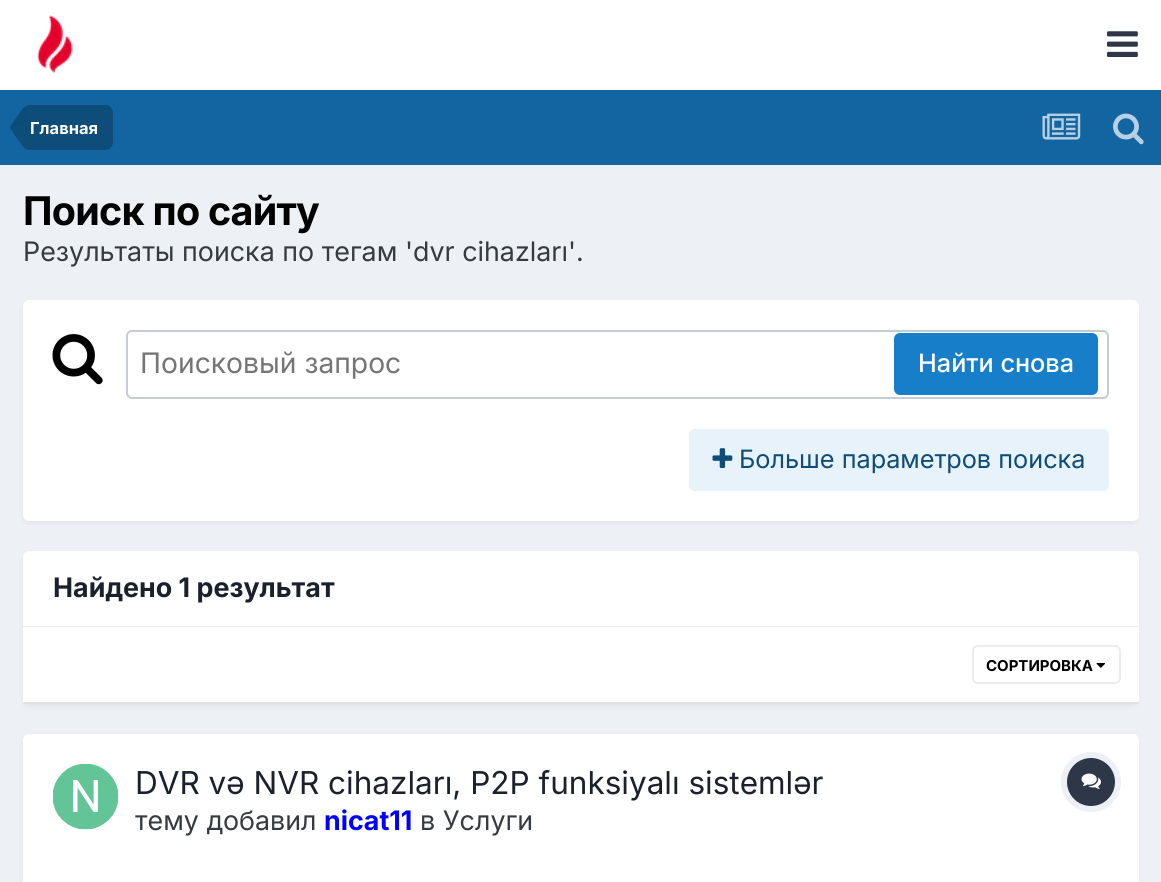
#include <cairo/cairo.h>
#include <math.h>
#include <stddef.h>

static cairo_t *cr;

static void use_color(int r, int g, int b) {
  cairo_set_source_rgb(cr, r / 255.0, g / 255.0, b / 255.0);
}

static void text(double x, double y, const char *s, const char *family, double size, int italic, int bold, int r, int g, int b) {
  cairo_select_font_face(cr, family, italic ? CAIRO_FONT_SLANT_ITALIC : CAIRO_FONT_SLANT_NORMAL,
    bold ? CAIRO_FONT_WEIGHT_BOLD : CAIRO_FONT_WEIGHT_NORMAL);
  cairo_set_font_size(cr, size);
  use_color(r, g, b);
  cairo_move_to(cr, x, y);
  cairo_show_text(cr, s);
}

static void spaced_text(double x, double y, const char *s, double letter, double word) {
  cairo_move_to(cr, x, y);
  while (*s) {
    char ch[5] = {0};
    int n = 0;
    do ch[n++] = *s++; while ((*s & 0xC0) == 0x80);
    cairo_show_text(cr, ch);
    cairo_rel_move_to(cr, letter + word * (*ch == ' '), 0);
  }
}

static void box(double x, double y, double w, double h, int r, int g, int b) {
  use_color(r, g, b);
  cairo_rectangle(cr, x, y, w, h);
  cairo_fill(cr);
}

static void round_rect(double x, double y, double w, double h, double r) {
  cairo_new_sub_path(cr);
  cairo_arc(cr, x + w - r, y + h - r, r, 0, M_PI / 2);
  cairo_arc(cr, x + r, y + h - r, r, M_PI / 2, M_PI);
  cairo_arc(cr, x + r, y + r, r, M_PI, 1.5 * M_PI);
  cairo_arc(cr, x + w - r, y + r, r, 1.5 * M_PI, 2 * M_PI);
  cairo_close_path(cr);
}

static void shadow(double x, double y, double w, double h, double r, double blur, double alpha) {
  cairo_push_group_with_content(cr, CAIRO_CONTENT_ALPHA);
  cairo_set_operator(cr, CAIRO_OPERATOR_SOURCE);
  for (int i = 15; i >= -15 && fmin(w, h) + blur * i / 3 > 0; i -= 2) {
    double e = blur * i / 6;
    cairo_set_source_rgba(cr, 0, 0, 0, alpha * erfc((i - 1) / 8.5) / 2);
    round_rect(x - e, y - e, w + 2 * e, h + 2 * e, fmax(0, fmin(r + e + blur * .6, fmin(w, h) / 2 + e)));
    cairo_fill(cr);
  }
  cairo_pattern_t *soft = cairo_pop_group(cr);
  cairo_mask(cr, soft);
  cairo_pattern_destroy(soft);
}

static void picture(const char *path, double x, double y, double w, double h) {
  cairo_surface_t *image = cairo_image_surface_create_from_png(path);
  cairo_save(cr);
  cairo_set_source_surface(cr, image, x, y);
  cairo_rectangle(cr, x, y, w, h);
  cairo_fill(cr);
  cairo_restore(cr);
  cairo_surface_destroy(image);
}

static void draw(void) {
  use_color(237, 240, 244);
  cairo_paint(cr);
  box(0, 0, 1161, 90, 255, 255, 255);
  picture("img_01.png", 37, 15, 36, 59);
  picture("img_02.png", 1107, 31, 31, 26);
  box(0, 90, 1161, 75, 18, 101, 161);
  use_color(14, 76, 121);
  cairo_new_path(cr);
  cairo_move_to(cr, 30, 105);
  cairo_line_to(cr, 105, 105);
  cairo_curve_to(cr, 109.5, 105, 113, 108.5, 113, 113);
  cairo_line_to(cr, 113, 142);
  cairo_curve_to(cr, 113, 146.5, 109.5, 150, 105, 150);
  cairo_line_to(cr, 30, 150);
  cairo_close_path(cr);
  cairo_fill(cr);
  cairo_new_path(cr);
  cairo_move_to(cr, 10.5, 129);
  cairo_line_to(cr, 10, 127.5);
  cairo_line_to(cr, 30, 127.5);
  cairo_line_to(cr, 30, 150);
  cairo_curve_to(cr, 27, 150, 23.5, 148, 21, 144);
  cairo_close_path(cr);
  cairo_fill(cr);
  cairo_set_source_rgba(cr, 0, 0, 0, 0.25);
  cairo_new_path(cr);
  cairo_move_to(cr, 30, 105);
  cairo_line_to(cr, 30, 127.5);
  cairo_line_to(cr, 10, 127.5);
  cairo_line_to(cr, 10.5, 126);
  cairo_line_to(cr, 21, 111);
  cairo_curve_to(cr, 23.5, 107, 27, 105, 30, 105);
  cairo_close_path(cr);
  cairo_fill(cr);
  picture("img_03.png", 1042, 113, 39, 27);
  picture("img_04.png", 1113, 113, 31, 32);
  use_color(45, 55, 72);
  shadow(24, 305, 1113, 217, 5, 3, 0.1);
  use_color(255, 255, 255);
  round_rect(23, 300, 1116, 221, 6);
  cairo_fill(cr);
  picture("img_05.png", 52, 334, 51, 51);
  round_rect(127, 331, 981, 67, 5);
  use_color(198, 204, 213);
  cairo_stroke(cr);
  use_color(23, 126, 201);
  round_rect(894, 333, 204, 62, 6);
  cairo_fill(cr);
  use_color(232, 242, 250);
  round_rect(689, 429, 420, 62, 6);
  cairo_fill(cr);
  picture("img_06.png", 712, 448, 21, 20);
  use_color(45, 55, 72);
  shadow(24, 555, 1113, 150, 5, 3, 0.1);
  use_color(255, 255, 255);
  cairo_new_path(cr);
  cairo_move_to(cr, 29, 551);
  cairo_line_to(cr, 1133, 551);
  cairo_curve_to(cr, 1136.5, 551, 1139, 553.5, 1139, 557);
  cairo_line_to(cr, 1139, 627);
  cairo_line_to(cr, 23, 627);
  cairo_line_to(cr, 23, 557);
  cairo_curve_to(cr, 23, 553.5, 25.5, 551, 29, 551);
  cairo_close_path(cr);
  cairo_fill(cr);
  box(23, 626, 1116, 1, 234, 236, 239);
  box(23, 627, 1116, 75, 255, 255, 255);
  box(23, 702, 1116, 2, 225, 226, 227);
  picture("img_07.png", 1096, 663, 9, 5);
  round_rect(973, 646, 147, 37, 5);
  use_color(235, 236, 236);
  cairo_stroke(cr);
  use_color(45, 55, 72);
  shadow(24, 738, 1113, 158, 5, 3, 0.1);
  use_color(255, 255, 255);
  round_rect(23, 734, 1116, 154, 6);
  cairo_fill(cr);
  picture("img_08.png", 53, 764, 66, 66);
  cairo_arc(cr, 1091, 782, 27, 0, 2 * M_PI);
  use_color(237, 240, 244);
  cairo_set_line_width(cr, 6);
  cairo_stroke(cr);
  use_color(45, 55, 72);
  cairo_arc(cr, 1091, 782, 24, 0, 2 * M_PI);
  cairo_fill(cr);
  picture("img_09.png", 1081, 773, 20, 16);
  text(30, 134, "Главная", "Inter", 16.5, 0, 1, 255, 255, 255);
  cairo_set_font_size(cr, 39.5);
  use_color(0, 0, 0);
  spaced_text(23, 225, "Поиск по сайту", -0.75, 0);
  text(23, 261, "Результаты поиска по тегам 'dvr cihazları'.", "Inter", 26.85, 0, 0, 53, 60, 65);
  text(140, 373, "Поисковый запрос", "Inter", 28.25, 0, 0, 117, 117, 117);
  text(918, 372, "Найти снова", "Inter Medium", 25.25, 0, 0, 255, 255, 255);
  text(739, 468, "Больше параметров поиска", "Inter", 25.25, 0, 0, 14, 76, 121);
  text(53, 597, "Найдено 1 результат", "Inter", 26.85, 0, 1, 26, 32, 44);
  text(986, 671, "СОРТИРОВКА", "Inter", 15, 0, 1, 0, 0, 0);
  text(135, 794, "DVR və NVR cihazları, P2P funksiyalı sistemlər", "Inter", 31.5, 0, 0, 26, 32, 44);
  text(135, 830, "тему добавил", "Inter", 26.85, 0, 0, 53, 60, 65);
  text(324, 830, "nicat11", "Inter", 26.85, 0, 1, 0, 0, 255);
  text(420, 830, "в Услуги", "Inter", 26.85, 0, 0, 53, 60, 65);
}

int main(void) {
  cairo_surface_t *surface = cairo_image_surface_create(CAIRO_FORMAT_RGB24, 1161, 882);
  cr = cairo_create(surface);
  cairo_font_options_t *options = cairo_font_options_create();
  cairo_font_options_set_hint_metrics(options, CAIRO_HINT_METRICS_OFF);
  cairo_font_options_set_hint_style(options, CAIRO_HINT_STYLE_NONE);
  cairo_set_font_options(cr, options);
  cairo_set_miter_limit(cr, 4);
  draw();
  cairo_surface_write_to_png(surface, "out.png");
  cairo_font_options_destroy(options);
  cairo_destroy(cr);
  cairo_surface_destroy(surface);
  return 0;
}
